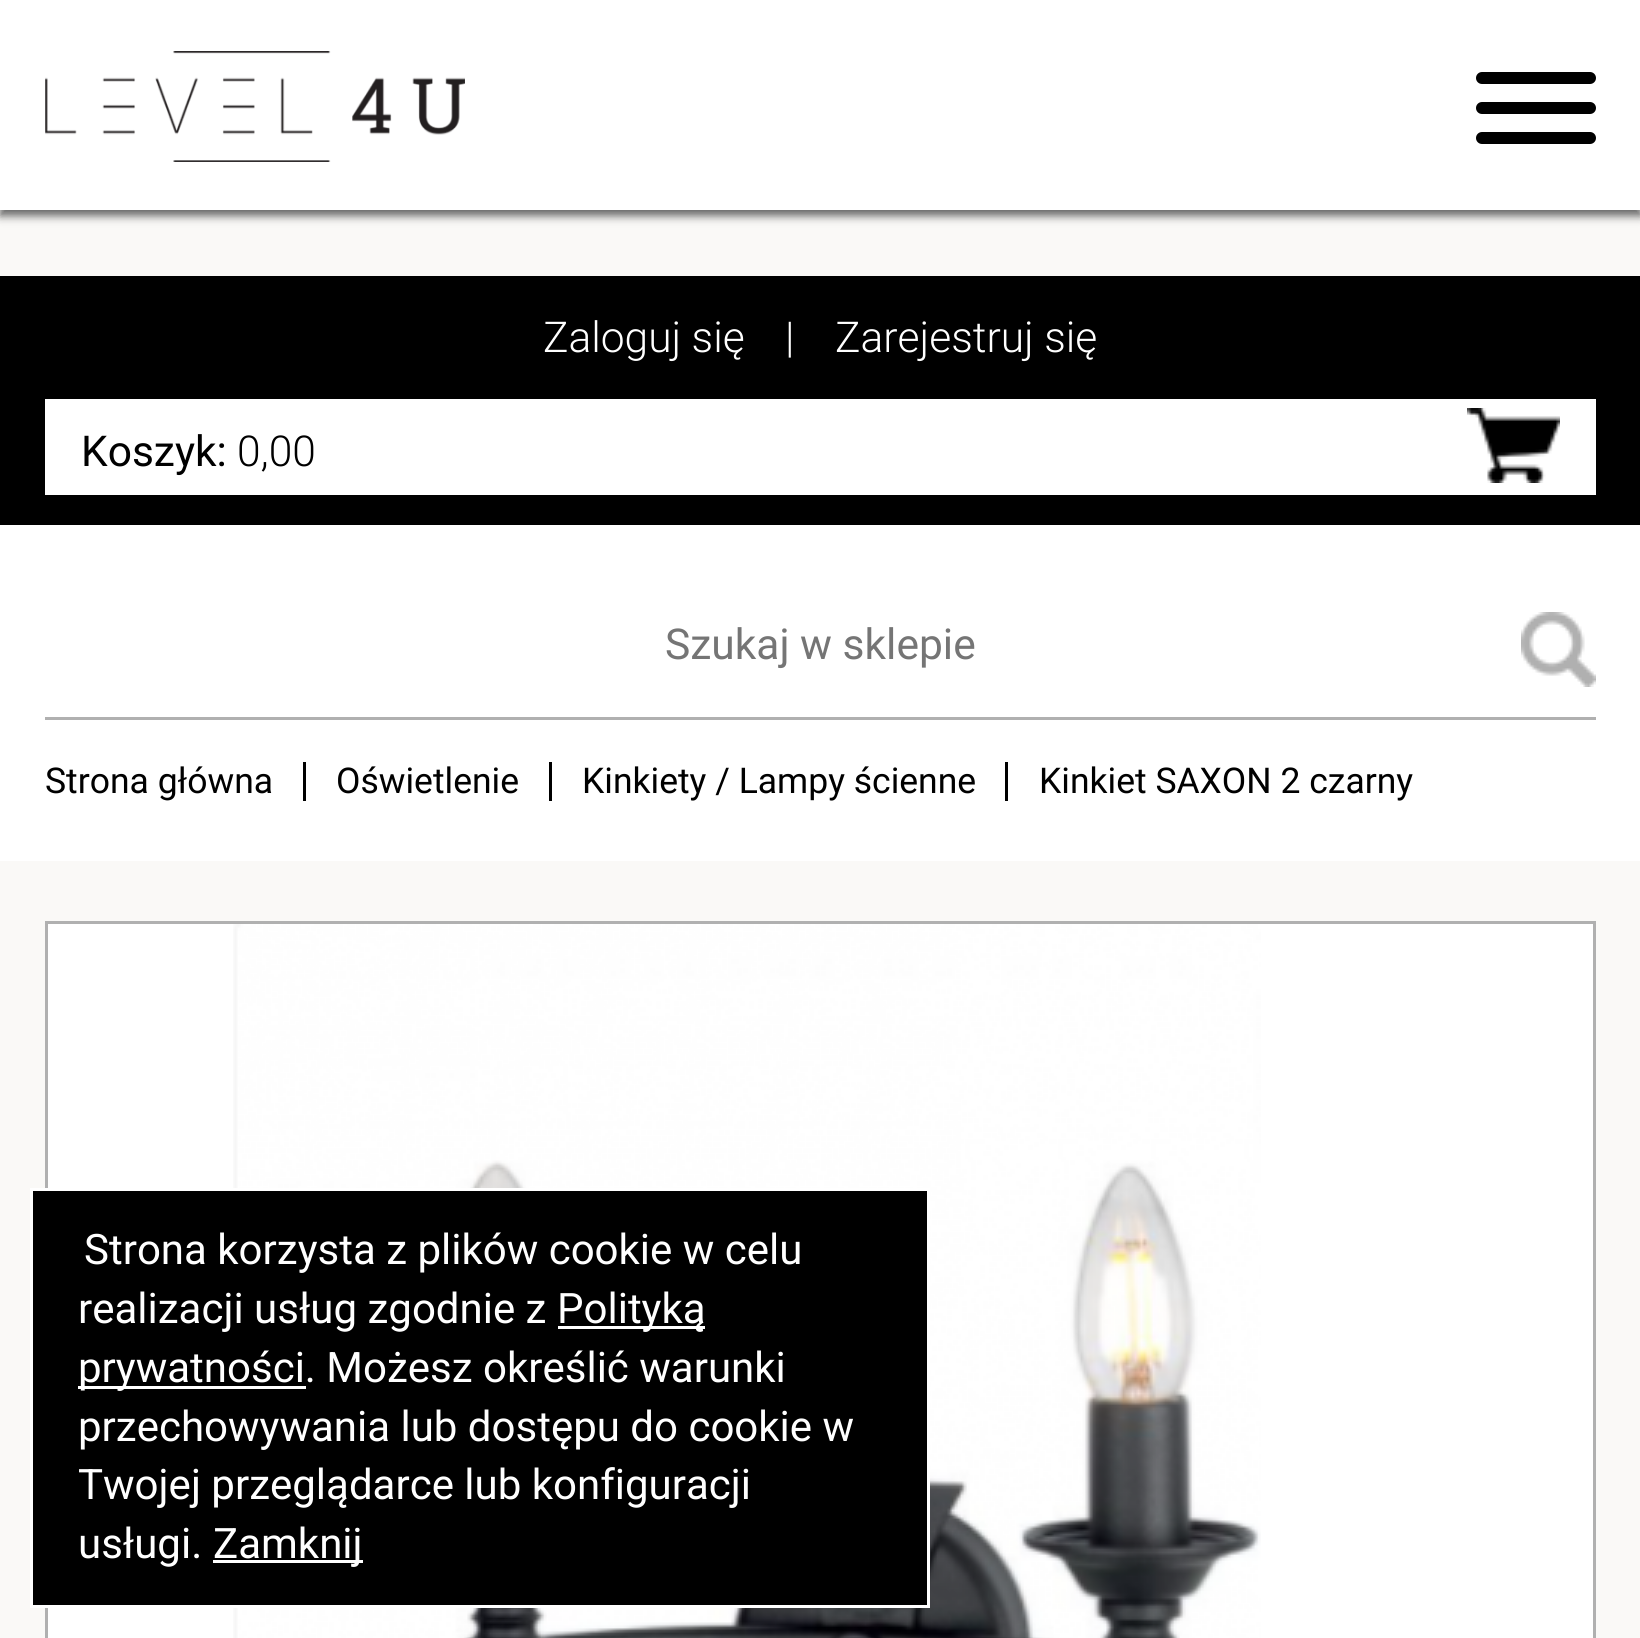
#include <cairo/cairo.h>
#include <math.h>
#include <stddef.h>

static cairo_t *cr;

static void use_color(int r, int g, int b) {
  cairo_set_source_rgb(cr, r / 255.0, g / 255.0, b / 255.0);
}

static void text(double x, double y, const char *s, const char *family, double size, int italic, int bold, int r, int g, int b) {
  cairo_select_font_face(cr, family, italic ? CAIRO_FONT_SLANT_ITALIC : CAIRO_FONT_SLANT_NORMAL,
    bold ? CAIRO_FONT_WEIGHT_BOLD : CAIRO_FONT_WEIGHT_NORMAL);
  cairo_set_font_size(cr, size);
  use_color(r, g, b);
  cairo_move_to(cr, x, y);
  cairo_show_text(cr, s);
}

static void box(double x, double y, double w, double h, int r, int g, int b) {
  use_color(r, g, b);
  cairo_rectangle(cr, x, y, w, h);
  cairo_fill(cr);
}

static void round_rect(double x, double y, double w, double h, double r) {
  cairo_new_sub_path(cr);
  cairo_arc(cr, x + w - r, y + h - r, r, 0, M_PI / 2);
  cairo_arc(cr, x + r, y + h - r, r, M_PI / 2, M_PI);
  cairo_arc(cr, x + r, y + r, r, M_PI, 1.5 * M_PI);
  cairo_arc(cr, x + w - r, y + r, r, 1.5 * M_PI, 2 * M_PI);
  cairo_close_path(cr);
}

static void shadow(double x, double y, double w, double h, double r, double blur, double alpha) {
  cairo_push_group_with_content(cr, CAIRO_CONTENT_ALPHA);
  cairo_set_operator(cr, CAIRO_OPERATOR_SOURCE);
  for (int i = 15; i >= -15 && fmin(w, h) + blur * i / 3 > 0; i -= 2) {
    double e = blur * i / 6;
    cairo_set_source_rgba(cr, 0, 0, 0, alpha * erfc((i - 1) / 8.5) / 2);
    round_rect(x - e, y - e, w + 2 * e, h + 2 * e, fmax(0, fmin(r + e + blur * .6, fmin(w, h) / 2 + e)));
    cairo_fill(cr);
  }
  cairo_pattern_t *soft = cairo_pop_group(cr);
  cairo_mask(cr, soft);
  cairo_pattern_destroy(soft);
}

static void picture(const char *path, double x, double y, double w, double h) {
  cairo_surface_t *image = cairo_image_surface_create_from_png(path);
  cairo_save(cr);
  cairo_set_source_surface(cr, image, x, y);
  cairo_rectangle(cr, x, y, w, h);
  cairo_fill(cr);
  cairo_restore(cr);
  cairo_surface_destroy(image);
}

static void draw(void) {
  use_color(250, 249, 247);
  cairo_paint(cr);
  use_color(102, 102, 102);
  shadow(0, 6, 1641, 210, 0, 4.5, 1);
  box(0, 0, 1640, 210, 255, 255, 255);
  picture("img_01.png", 45, 51, 420, 111);
  use_color(0, 0, 0);
  round_rect(1476, 132, 120, 12, 6);
  cairo_fill(cr);
  round_rect(1476, 72, 120, 12, 6);
  cairo_fill(cr);
  round_rect(1476, 102, 120, 12, 6);
  cairo_fill(cr);
  box(0, 276, 1640, 249, 0, 0, 0);
  box(45, 399, 1551, 96, 255, 255, 255);
  picture("img_02.png", 1467, 408, 93, 75);
  box(0, 525, 1640, 336, 255, 255, 255);
  box(45, 717, 1551, 3, 176, 176, 176);
  picture("img_03.png", 1521, 612, 75, 75);
  box(303, 762, 3, 39, 0, 0, 0);
  box(549, 762, 3, 39, 0, 0, 0);
  box(1005, 762, 3, 39, 0, 0, 0);
  use_color(255, 255, 255);
  cairo_rectangle(cr, 46.5, 922.5, 1548, 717);
  cairo_fill_preserve(cr);
  use_color(176, 176, 176);
  cairo_set_line_width(cr, 3);
  cairo_stroke(cr);
  picture("img_04.png", 233, 924, 1028, 714);
  use_color(0, 0, 0);
  cairo_rectangle(cr, 31.5, 1189.5, 897, 417);
  cairo_fill_preserve(cr);
  use_color(255, 255, 255);
  cairo_stroke(cr);
  box(558, 1326, 147, 3, 255, 255, 255);
  box(78, 1386, 228, 3, 255, 255, 255);
  box(213, 1560, 150, 3, 255, 255, 255);
  text(543, 352, "Zaloguj się", "Roboto Light", 42.5, 0, 0, 255, 255, 255);
  text(785, 352, "|", "Roboto Light", 42.5, 0, 0, 255, 255, 255);
  text(835, 352, "Zarejestruj się", "Roboto Light", 42.5, 0, 0, 255, 255, 255);
  text(81, 466, "Koszyk:", "Roboto", 42.5, 0, 0, 0, 0, 0);
  text(237, 466, "0,00", "Roboto Light", 42.5, 0, 0, 0, 0, 0);
  text(665, 659, "Szukaj w sklepie", "Roboto", 42.5, 0, 0, 117, 117, 117);
  text(45, 793, "Strona główna", "Roboto", 35.5, 0, 0, 0, 0, 0);
  text(336, 793, "Oświetlenie", "Roboto", 35.5, 0, 0, 0, 0, 0);
  text(582, 793, "Kinkiety / Lampy ścienne", "Roboto", 35.5, 0, 0, 0, 0, 0);
  text(1039, 793, "Kinkiet SAXON 2 czarny", "Roboto", 35.5, 0, 0, 0, 0, 0);
  text(84, 1264, "Strona korzysta z plików cookie w celu", "Roboto", 42, 0, 0, 255, 255, 255);
  text(78, 1323, "realizacji usług zgodnie z", "Roboto", 42, 0, 0, 255, 255, 255);
  text(557, 1323, "Polityką", "Roboto", 42, 0, 0, 255, 255, 255);
  text(78, 1382, "prywatności. Możesz określić warunki", "Roboto", 42, 0, 0, 255, 255, 255);
  text(78, 1441, "przechowywania lub dostępu do cookie w", "Roboto", 42, 0, 0, 255, 255, 255);
  text(78, 1499, "Twojej przeglądarce lub konfiguracji", "Roboto", 42, 0, 0, 255, 255, 255);
  text(78, 1558, "usługi.", "Roboto", 42, 0, 0, 255, 255, 255);
  text(213, 1558, "Zamknij", "Roboto", 42, 0, 0, 255, 255, 255);
}

int main(void) {
  cairo_surface_t *surface = cairo_image_surface_create(CAIRO_FORMAT_RGB24, 1640, 1638);
  cr = cairo_create(surface);
  cairo_font_options_t *options = cairo_font_options_create();
  cairo_font_options_set_hint_metrics(options, CAIRO_HINT_METRICS_OFF);
  cairo_font_options_set_hint_style(options, CAIRO_HINT_STYLE_NONE);
  cairo_set_font_options(cr, options);
  cairo_set_miter_limit(cr, 4);
  draw();
  cairo_surface_write_to_png(surface, "out.png");
  cairo_font_options_destroy(options);
  cairo_destroy(cr);
  cairo_surface_destroy(surface);
  return 0;
}
